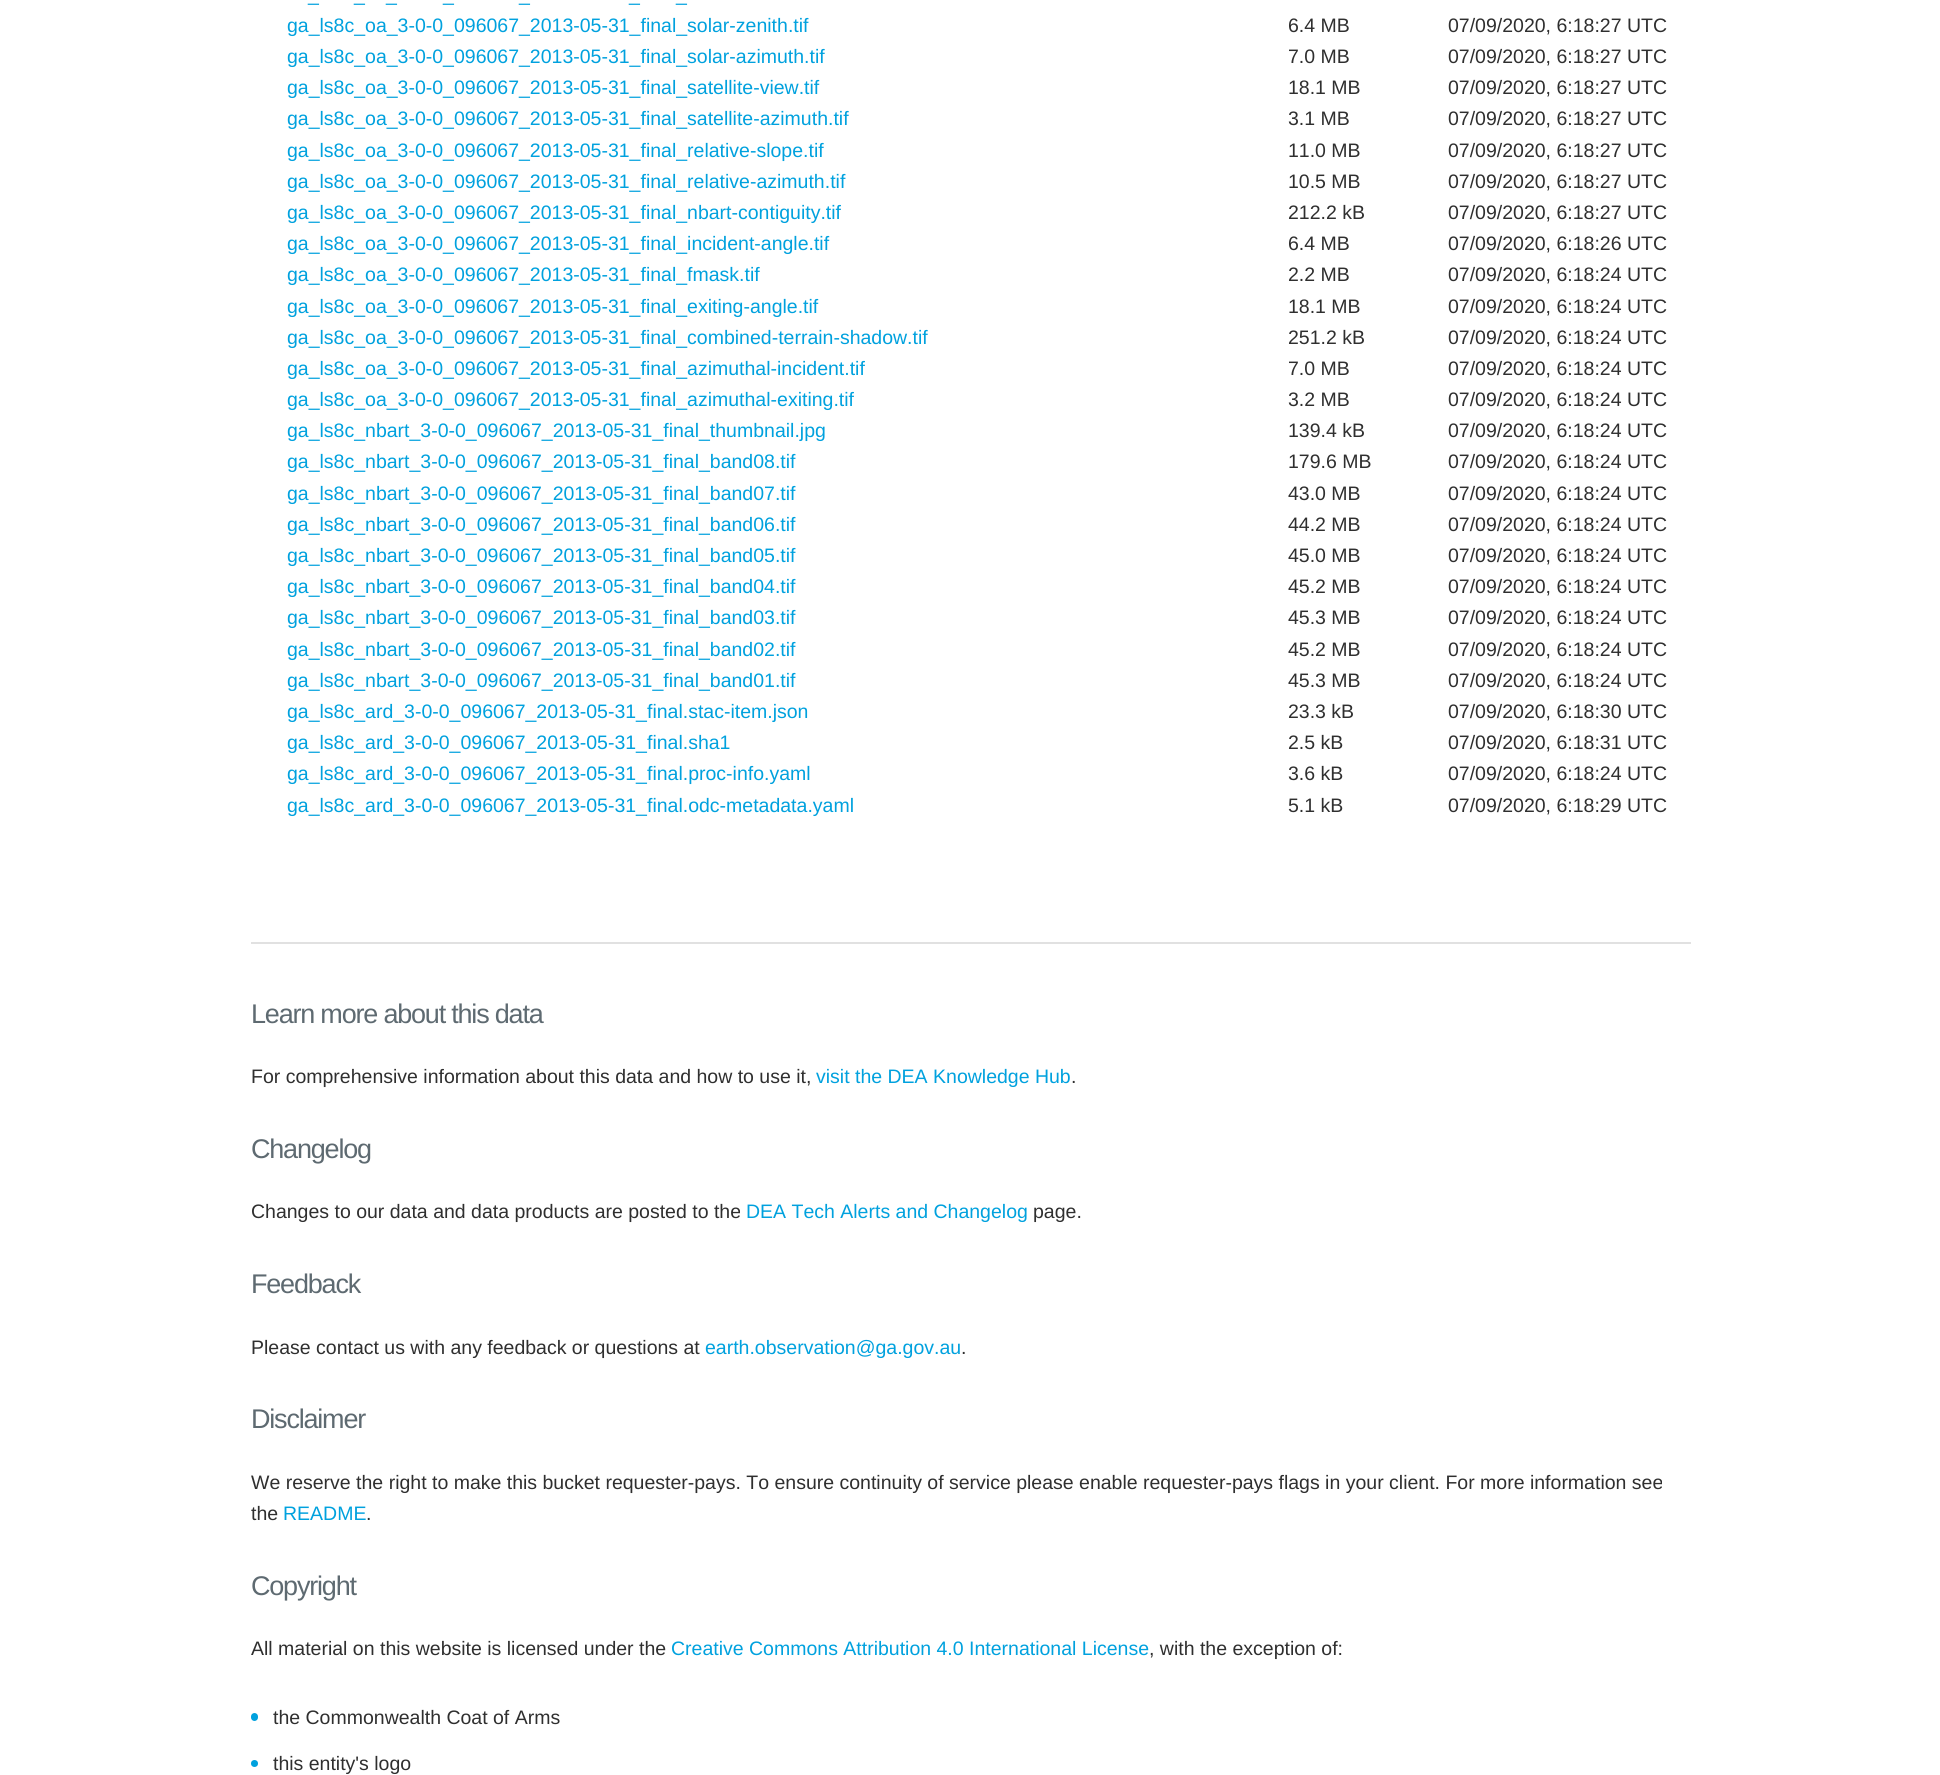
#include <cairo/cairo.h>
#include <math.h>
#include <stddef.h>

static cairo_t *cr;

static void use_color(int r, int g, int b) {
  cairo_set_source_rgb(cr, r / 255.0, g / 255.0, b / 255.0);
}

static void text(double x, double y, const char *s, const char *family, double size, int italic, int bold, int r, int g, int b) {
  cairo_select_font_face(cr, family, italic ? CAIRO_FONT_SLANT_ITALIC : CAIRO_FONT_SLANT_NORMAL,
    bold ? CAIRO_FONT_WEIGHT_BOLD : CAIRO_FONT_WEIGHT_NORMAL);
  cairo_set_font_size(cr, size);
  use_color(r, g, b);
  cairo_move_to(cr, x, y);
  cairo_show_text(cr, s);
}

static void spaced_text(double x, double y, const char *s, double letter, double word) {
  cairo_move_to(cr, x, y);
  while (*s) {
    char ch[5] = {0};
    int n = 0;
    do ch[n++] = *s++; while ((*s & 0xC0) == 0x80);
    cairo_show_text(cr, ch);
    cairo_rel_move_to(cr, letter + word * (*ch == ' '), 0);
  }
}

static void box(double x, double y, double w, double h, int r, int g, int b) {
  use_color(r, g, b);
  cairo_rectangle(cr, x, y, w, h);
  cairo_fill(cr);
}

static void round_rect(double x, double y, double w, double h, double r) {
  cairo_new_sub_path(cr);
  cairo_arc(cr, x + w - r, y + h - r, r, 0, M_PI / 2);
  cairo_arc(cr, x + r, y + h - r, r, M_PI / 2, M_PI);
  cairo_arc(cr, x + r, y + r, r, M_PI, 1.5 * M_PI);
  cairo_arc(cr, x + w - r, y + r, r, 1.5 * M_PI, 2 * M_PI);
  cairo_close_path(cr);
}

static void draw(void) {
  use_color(255, 255, 255);
  cairo_paint(cr);
  box(251, 942, 1440, 2, 225, 225, 225);
  use_color(0, 161, 222);
  round_rect(251, 1713, 7, 8, 3.5);
  cairo_fill(cr);
  cairo_arc(cr, 254.5, 1763.5, 3.5, 0, 2 * M_PI);
  cairo_fill(cr);
  text(308, 1, "_", "Liberation Sans", 19.5, 0, 0, 0, 161, 222);
  text(354, 1, "_", "Liberation Sans", 19.5, 0, 0, 0, 161, 222);
  text(386, 1, "_", "Liberation Sans", 19.5, 0, 0, 0, 161, 222);
  text(443, 1, "_", "Liberation Sans", 19.5, 0, 0, 0, 161, 222);
  text(519, 1, "_", "Liberation Sans", 19.5, 0, 0, 0, 161, 222);
  text(629, 1, "_", "Liberation Sans", 19.5, 0, 0, 0, 161, 222);
  text(676, 1, "_", "Liberation Sans", 19.5, 0, 0, 0, 161, 222);
  text(287, 32, "ga_ls8c_oa_3-0-0_096067_2013-05-31_final_solar-zenith.tif", "Liberation Sans", 19.5, 0, 0, 0, 161, 222);
  text(1288, 32, "6.4 MB", "Liberation Sans", 19.5, 0, 0, 47, 47, 47);
  text(1448, 32, "07/09/2020, 6:18:27 UTC", "Liberation Sans", 19.5, 0, 0, 47, 47, 47);
  text(287, 63, "ga_ls8c_oa_3-0-0_096067_2013-05-31_final_solar-azimuth.tif", "Liberation Sans", 19.5, 0, 0, 0, 161, 222);
  text(1288, 63, "7.0 MB", "Liberation Sans", 19.5, 0, 0, 47, 47, 47);
  text(1448, 63, "07/09/2020, 6:18:27 UTC", "Liberation Sans", 19.5, 0, 0, 47, 47, 47);
  text(287, 94, "ga_ls8c_oa_3-0-0_096067_2013-05-31_final_satellite-view.tif", "Liberation Sans", 19.5, 0, 0, 0, 161, 222);
  text(1288, 94, "18.1 MB", "Liberation Sans", 19.5, 0, 0, 47, 47, 47);
  text(1448, 94, "07/09/2020, 6:18:27 UTC", "Liberation Sans", 19.5, 0, 0, 47, 47, 47);
  text(287, 125, "ga_ls8c_oa_3-0-0_096067_2013-05-31_final_satellite-azimuth.tif", "Liberation Sans", 19.5, 0, 0, 0, 161, 222);
  text(1288, 125, "3.1 MB", "Liberation Sans", 19.5, 0, 0, 47, 47, 47);
  text(1448, 125, "07/09/2020, 6:18:27 UTC", "Liberation Sans", 19.5, 0, 0, 47, 47, 47);
  text(287, 157, "ga_ls8c_oa_3-0-0_096067_2013-05-31_final_relative-slope.tif", "Liberation Sans", 19.5, 0, 0, 0, 161, 222);
  text(1288, 157, "11.0 MB", "Liberation Sans", 19.5, 0, 0, 47, 47, 47);
  text(1448, 157, "07/09/2020, 6:18:27 UTC", "Liberation Sans", 19.5, 0, 0, 47, 47, 47);
  text(287, 188, "ga_ls8c_oa_3-0-0_096067_2013-05-31_final_relative-azimuth.tif", "Liberation Sans", 19.5, 0, 0, 0, 161, 222);
  text(1288, 188, "10.5 MB", "Liberation Sans", 19.5, 0, 0, 47, 47, 47);
  text(1448, 188, "07/09/2020, 6:18:27 UTC", "Liberation Sans", 19.5, 0, 0, 47, 47, 47);
  text(287, 219, "ga_ls8c_oa_3-0-0_096067_2013-05-31_final_nbart-contiguity.tif", "Liberation Sans", 19.5, 0, 0, 0, 161, 222);
  text(1288, 219, "212.2 kB", "Liberation Sans", 19.5, 0, 0, 47, 47, 47);
  text(1448, 219, "07/09/2020, 6:18:27 UTC", "Liberation Sans", 19.5, 0, 0, 47, 47, 47);
  text(287, 250, "ga_ls8c_oa_3-0-0_096067_2013-05-31_final_incident-angle.tif", "Liberation Sans", 19.5, 0, 0, 0, 161, 222);
  text(1288, 250, "6.4 MB", "Liberation Sans", 19.5, 0, 0, 47, 47, 47);
  text(1448, 250, "07/09/2020, 6:18:26 UTC", "Liberation Sans", 19.5, 0, 0, 47, 47, 47);
  text(287, 281, "ga_ls8c_oa_3-0-0_096067_2013-05-31_final_fmask.tif", "Liberation Sans", 19.5, 0, 0, 0, 161, 222);
  text(1288, 281, "2.2 MB", "Liberation Sans", 19.5, 0, 0, 47, 47, 47);
  text(1448, 281, "07/09/2020, 6:18:24 UTC", "Liberation Sans", 19.5, 0, 0, 47, 47, 47);
  text(287, 313, "ga_ls8c_oa_3-0-0_096067_2013-05-31_final_exiting-angle.tif", "Liberation Sans", 19.5, 0, 0, 0, 161, 222);
  text(1288, 313, "18.1 MB", "Liberation Sans", 19.5, 0, 0, 47, 47, 47);
  text(1448, 313, "07/09/2020, 6:18:24 UTC", "Liberation Sans", 19.5, 0, 0, 47, 47, 47);
  text(287, 344, "ga_ls8c_oa_3-0-0_096067_2013-05-31_final_combined-terrain-shadow.tif", "Liberation Sans", 19.5, 0, 0, 0, 161, 222);
  text(1288, 344, "251.2 kB", "Liberation Sans", 19.5, 0, 0, 47, 47, 47);
  text(1448, 344, "07/09/2020, 6:18:24 UTC", "Liberation Sans", 19.5, 0, 0, 47, 47, 47);
  text(287, 375, "ga_ls8c_oa_3-0-0_096067_2013-05-31_final_azimuthal-incident.tif", "Liberation Sans", 19.5, 0, 0, 0, 161, 222);
  text(1288, 375, "7.0 MB", "Liberation Sans", 19.5, 0, 0, 47, 47, 47);
  text(1448, 375, "07/09/2020, 6:18:24 UTC", "Liberation Sans", 19.5, 0, 0, 47, 47, 47);
  text(287, 406, "ga_ls8c_oa_3-0-0_096067_2013-05-31_final_azimuthal-exiting.tif", "Liberation Sans", 19.5, 0, 0, 0, 161, 222);
  text(1288, 406, "3.2 MB", "Liberation Sans", 19.5, 0, 0, 47, 47, 47);
  text(1448, 406, "07/09/2020, 6:18:24 UTC", "Liberation Sans", 19.5, 0, 0, 47, 47, 47);
  text(287, 437, "ga_ls8c_nbart_3-0-0_096067_2013-05-31_final_thumbnail.jpg", "Liberation Sans", 19.5, 0, 0, 0, 161, 222);
  text(1288, 437, "139.4 kB", "Liberation Sans", 19.5, 0, 0, 47, 47, 47);
  text(1448, 437, "07/09/2020, 6:18:24 UTC", "Liberation Sans", 19.5, 0, 0, 47, 47, 47);
  text(287, 468, "ga_ls8c_nbart_3-0-0_096067_2013-05-31_final_band08.tif", "Liberation Sans", 19.5, 0, 0, 0, 161, 222);
  text(1288, 468, "179.6 MB", "Liberation Sans", 19.5, 0, 0, 47, 47, 47);
  text(1448, 468, "07/09/2020, 6:18:24 UTC", "Liberation Sans", 19.5, 0, 0, 47, 47, 47);
  text(287, 500, "ga_ls8c_nbart_3-0-0_096067_2013-05-31_final_band07.tif", "Liberation Sans", 19.5, 0, 0, 0, 161, 222);
  text(1288, 500, "43.0 MB", "Liberation Sans", 19.5, 0, 0, 47, 47, 47);
  text(1448, 500, "07/09/2020, 6:18:24 UTC", "Liberation Sans", 19.5, 0, 0, 47, 47, 47);
  text(287, 531, "ga_ls8c_nbart_3-0-0_096067_2013-05-31_final_band06.tif", "Liberation Sans", 19.5, 0, 0, 0, 161, 222);
  text(1288, 531, "44.2 MB", "Liberation Sans", 19.5, 0, 0, 47, 47, 47);
  text(1448, 531, "07/09/2020, 6:18:24 UTC", "Liberation Sans", 19.5, 0, 0, 47, 47, 47);
  text(287, 562, "ga_ls8c_nbart_3-0-0_096067_2013-05-31_final_band05.tif", "Liberation Sans", 19.5, 0, 0, 0, 161, 222);
  text(1288, 562, "45.0 MB", "Liberation Sans", 19.5, 0, 0, 47, 47, 47);
  text(1448, 562, "07/09/2020, 6:18:24 UTC", "Liberation Sans", 19.5, 0, 0, 47, 47, 47);
  text(287, 593, "ga_ls8c_nbart_3-0-0_096067_2013-05-31_final_band04.tif", "Liberation Sans", 19.5, 0, 0, 0, 161, 222);
  text(1288, 593, "45.2 MB", "Liberation Sans", 19.5, 0, 0, 47, 47, 47);
  text(1448, 593, "07/09/2020, 6:18:24 UTC", "Liberation Sans", 19.5, 0, 0, 47, 47, 47);
  text(287, 624, "ga_ls8c_nbart_3-0-0_096067_2013-05-31_final_band03.tif", "Liberation Sans", 19.5, 0, 0, 0, 161, 222);
  text(1288, 624, "45.3 MB", "Liberation Sans", 19.5, 0, 0, 47, 47, 47);
  text(1448, 624, "07/09/2020, 6:18:24 UTC", "Liberation Sans", 19.5, 0, 0, 47, 47, 47);
  text(287, 656, "ga_ls8c_nbart_3-0-0_096067_2013-05-31_final_band02.tif", "Liberation Sans", 19.5, 0, 0, 0, 161, 222);
  text(1288, 656, "45.2 MB", "Liberation Sans", 19.5, 0, 0, 47, 47, 47);
  text(1448, 656, "07/09/2020, 6:18:24 UTC", "Liberation Sans", 19.5, 0, 0, 47, 47, 47);
  text(287, 687, "ga_ls8c_nbart_3-0-0_096067_2013-05-31_final_band01.tif", "Liberation Sans", 19.5, 0, 0, 0, 161, 222);
  text(1288, 687, "45.3 MB", "Liberation Sans", 19.5, 0, 0, 47, 47, 47);
  text(1448, 687, "07/09/2020, 6:18:24 UTC", "Liberation Sans", 19.5, 0, 0, 47, 47, 47);
  text(287, 718, "ga_ls8c_ard_3-0-0_096067_2013-05-31_final.stac-item.json", "Liberation Sans", 19.5, 0, 0, 0, 161, 222);
  text(1288, 718, "23.3 kB", "Liberation Sans", 19.5, 0, 0, 47, 47, 47);
  text(1448, 718, "07/09/2020, 6:18:30 UTC", "Liberation Sans", 19.5, 0, 0, 47, 47, 47);
  text(287, 749, "ga_ls8c_ard_3-0-0_096067_2013-05-31_final.sha1", "Liberation Sans", 19.5, 0, 0, 0, 161, 222);
  text(1288, 749, "2.5 kB", "Liberation Sans", 19.5, 0, 0, 47, 47, 47);
  text(1448, 749, "07/09/2020, 6:18:31 UTC", "Liberation Sans", 19.5, 0, 0, 47, 47, 47);
  text(287, 780, "ga_ls8c_ard_3-0-0_096067_2013-05-31_final.proc-info.yaml", "Liberation Sans", 19.5, 0, 0, 0, 161, 222);
  text(1288, 780, "3.6 kB", "Liberation Sans", 19.5, 0, 0, 47, 47, 47);
  text(1448, 780, "07/09/2020, 6:18:24 UTC", "Liberation Sans", 19.5, 0, 0, 47, 47, 47);
  text(287, 812, "ga_ls8c_ard_3-0-0_096067_2013-05-31_final.odc-metadata.yaml", "Liberation Sans", 19.5, 0, 0, 0, 161, 222);
  text(1288, 812, "5.1 kB", "Liberation Sans", 19.5, 0, 0, 47, 47, 47);
  text(1448, 812, "07/09/2020, 6:18:29 UTC", "Liberation Sans", 19.5, 0, 0, 47, 47, 47);
  cairo_set_font_size(cr, 27);
  use_color(94, 106, 113);
  spaced_text(251, 1023, "Learn more about this data", -1.2, 0);
  text(251, 1083, "For comprehensive information about this data and how to use it,", "Liberation Sans", 19.5, 0, 0, 47, 47, 47);
  text(816, 1083, "visit the DEA Knowledge Hub", "Liberation Sans", 19.5, 0, 0, 0, 161, 222);
  text(1071, 1083, ".", "Liberation Sans", 19.5, 0, 0, 47, 47, 47);
  cairo_set_font_size(cr, 27);
  use_color(94, 106, 113);
  spaced_text(251, 1158, "Changelog", -1.2, 0);
  text(251, 1218, "Changes to our data and data products are posted to the", "Liberation Sans", 19.5, 0, 0, 47, 47, 47);
  text(746, 1218, "DEA Tech Alerts and Changelog", "Liberation Sans", 19.5, 0, 0, 0, 161, 222);
  text(1033, 1218, "page.", "Liberation Sans", 19.5, 0, 0, 47, 47, 47);
  cairo_set_font_size(cr, 27);
  use_color(94, 106, 113);
  spaced_text(251, 1293, "Feedback", -1.2, 0);
  text(251, 1354, "Please contact us with any feedback or questions at", "Liberation Sans", 19.5, 0, 0, 47, 47, 47);
  text(705, 1354, "earth.observation@ga.gov.au", "Liberation Sans", 19.5, 0, 0, 0, 161, 222);
  text(961, 1354, ".", "Liberation Sans", 19.5, 0, 0, 47, 47, 47);
  cairo_set_font_size(cr, 27);
  use_color(94, 106, 113);
  spaced_text(251, 1428, "Disclaimer", -1.2, 0);
  text(251, 1489, "We reserve the right to make this bucket requester-pays. To ensure continuity of service please enable requester-pays flags in your client. For more information see", "Liberation Sans", 19.5, 0, 0, 47, 47, 47);
  text(251, 1520, "the", "Liberation Sans", 19.5, 0, 0, 47, 47, 47);
  text(283, 1520, "README", "Liberation Sans", 19.5, 0, 0, 0, 161, 222);
  text(366, 1520, ".", "Liberation Sans", 19.5, 0, 0, 47, 47, 47);
  cairo_set_font_size(cr, 27);
  use_color(94, 106, 113);
  spaced_text(251, 1595, "Copyright", -1.2, 0);
  text(251, 1655, "All material on this website is licensed under the", "Liberation Sans", 19.5, 0, 0, 47, 47, 47);
  text(671, 1655, "Creative Commons Attribution 4.0 International License", "Liberation Sans", 19.5, 0, 0, 0, 161, 222);
  text(1149, 1655, ", with the exception of:", "Liberation Sans", 19.5, 0, 0, 47, 47, 47);
  text(273, 1724, "the Commonwealth Coat of Arms", "Liberation Sans", 19.5, 0, 0, 47, 47, 47);
  text(273, 1770, "this entity's logo", "Liberation Sans", 19.5, 0, 0, 47, 47, 47);
}

int main(void) {
  cairo_surface_t *surface = cairo_image_surface_create(CAIRO_FORMAT_RGB24, 1940, 1775);
  cr = cairo_create(surface);
  cairo_font_options_t *options = cairo_font_options_create();
  cairo_font_options_set_hint_metrics(options, CAIRO_HINT_METRICS_OFF);
  cairo_font_options_set_hint_style(options, CAIRO_HINT_STYLE_NONE);
  cairo_set_font_options(cr, options);
  cairo_set_miter_limit(cr, 4);
  draw();
  cairo_surface_write_to_png(surface, "out.png");
  cairo_font_options_destroy(options);
  cairo_destroy(cr);
  cairo_surface_destroy(surface);
  return 0;
}
